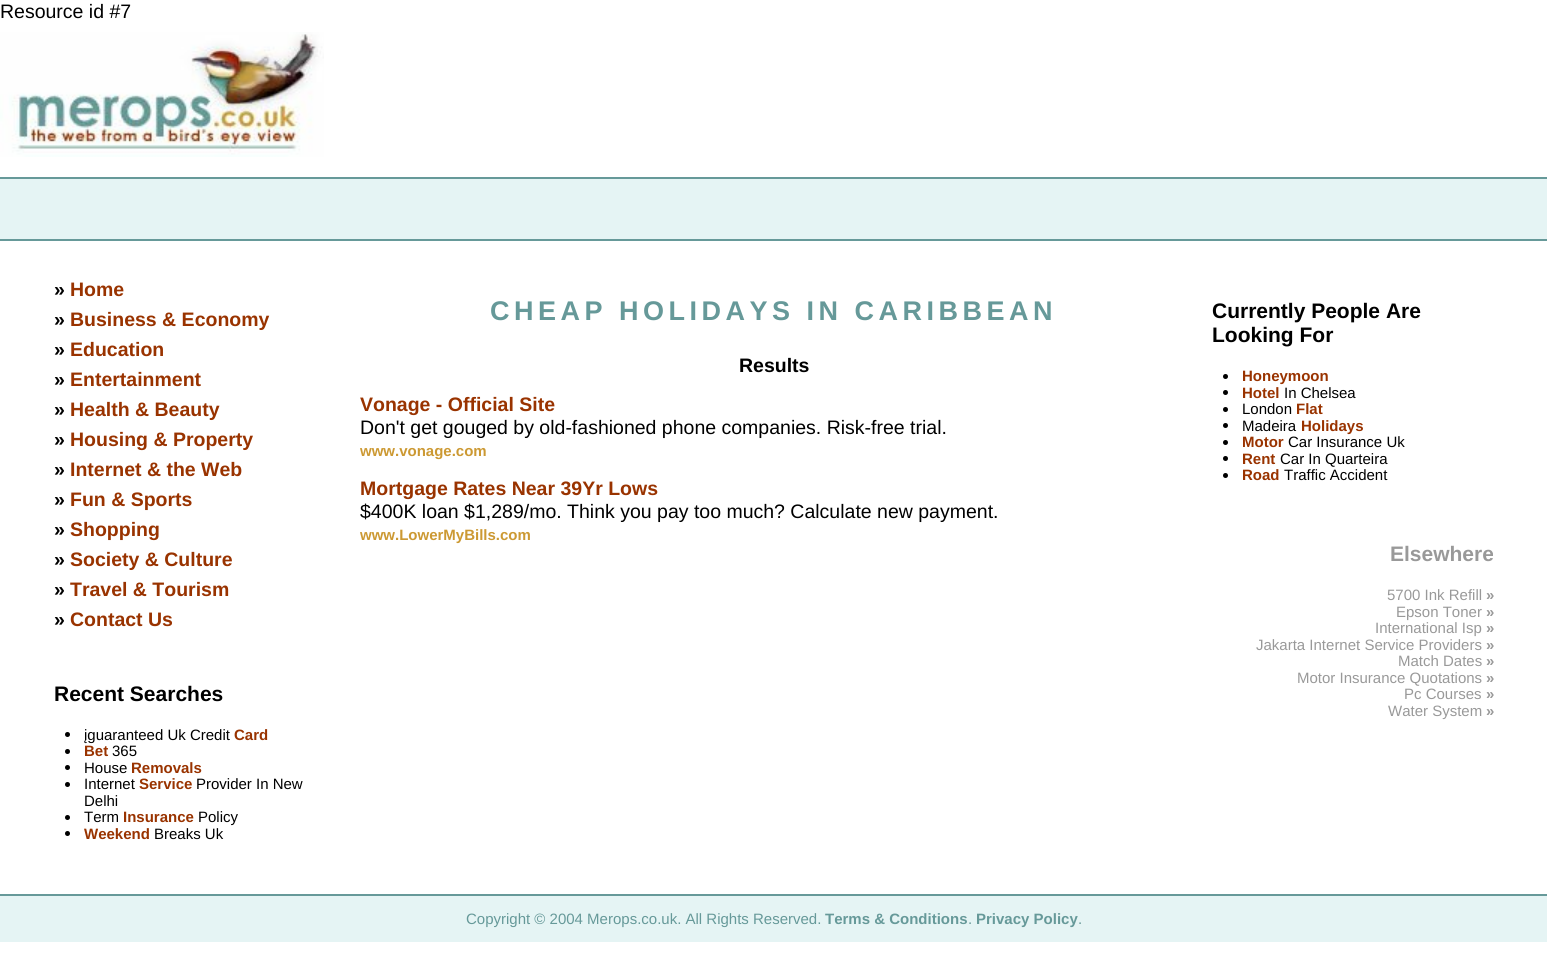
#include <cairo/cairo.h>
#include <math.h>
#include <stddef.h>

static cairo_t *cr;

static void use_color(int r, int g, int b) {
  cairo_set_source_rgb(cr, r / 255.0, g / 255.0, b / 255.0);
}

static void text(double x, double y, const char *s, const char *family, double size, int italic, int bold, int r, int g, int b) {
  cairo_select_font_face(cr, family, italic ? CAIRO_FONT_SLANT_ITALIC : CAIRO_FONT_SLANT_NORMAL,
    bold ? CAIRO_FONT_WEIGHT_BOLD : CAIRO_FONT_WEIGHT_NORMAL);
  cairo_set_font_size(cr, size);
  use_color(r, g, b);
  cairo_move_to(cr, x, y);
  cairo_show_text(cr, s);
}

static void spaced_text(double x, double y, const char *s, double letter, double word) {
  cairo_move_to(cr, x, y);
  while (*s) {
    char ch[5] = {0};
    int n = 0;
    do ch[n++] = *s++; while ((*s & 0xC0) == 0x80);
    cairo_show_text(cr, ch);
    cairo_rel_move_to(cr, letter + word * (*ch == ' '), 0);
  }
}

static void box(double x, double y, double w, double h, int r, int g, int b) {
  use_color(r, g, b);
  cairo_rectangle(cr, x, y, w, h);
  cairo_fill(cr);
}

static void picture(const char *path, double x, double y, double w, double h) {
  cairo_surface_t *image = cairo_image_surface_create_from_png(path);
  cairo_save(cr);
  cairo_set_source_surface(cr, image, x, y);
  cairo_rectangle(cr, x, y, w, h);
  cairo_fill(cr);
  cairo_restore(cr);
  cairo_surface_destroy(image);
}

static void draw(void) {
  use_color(255, 255, 255);
  cairo_paint(cr);
  picture("img_01.png", 0, 32, 324, 125);
  box(0, 179, 1547, 60, 229, 244, 244);
  box(0, 177, 1547, 2, 102, 153, 153);
  box(0, 239, 1547, 2, 102, 153, 153);
  use_color(0, 0, 0);
  cairo_arc(cr, 67.5, 734.5, 2.5, 0, 2 * M_PI);
  cairo_fill(cr);
  cairo_arc(cr, 67.5, 751.5, 2.5, 0, 2 * M_PI);
  cairo_fill(cr);
  cairo_arc(cr, 67.5, 767.5, 2.5, 0, 2 * M_PI);
  cairo_fill(cr);
  cairo_arc(cr, 67.5, 784.5, 2.5, 0, 2 * M_PI);
  cairo_fill(cr);
  cairo_arc(cr, 67.5, 817.5, 2.5, 0, 2 * M_PI);
  cairo_fill(cr);
  cairo_arc(cr, 67.5, 833.5, 2.5, 0, 2 * M_PI);
  cairo_fill(cr);
  cairo_arc(cr, 1225.5, 376.5, 2.5, 0, 2 * M_PI);
  cairo_fill(cr);
  cairo_arc(cr, 1225.5, 392.5, 2.5, 0, 2 * M_PI);
  cairo_fill(cr);
  cairo_arc(cr, 1225.5, 409.5, 2.5, 0, 2 * M_PI);
  cairo_fill(cr);
  cairo_arc(cr, 1225.5, 425.5, 2.5, 0, 2 * M_PI);
  cairo_fill(cr);
  cairo_arc(cr, 1225.5, 442.5, 2.5, 0, 2 * M_PI);
  cairo_fill(cr);
  cairo_arc(cr, 1225.5, 458.5, 2.5, 0, 2 * M_PI);
  cairo_fill(cr);
  cairo_arc(cr, 1225.5, 475.5, 2.5, 0, 2 * M_PI);
  cairo_fill(cr);
  box(0, 896, 1547, 46, 229, 244, 244);
  box(0, 894, 1547, 2, 102, 153, 153);
  text(0, 18, "Resource id #7", "Liberation Sans", 19.5, 0, 0, 0, 0, 0);
  text(54, 296, "»", "Liberation Sans", 19.5, 0, 1, 0, 0, 0);
  text(70, 296, "Home", "Liberation Sans", 19.5, 0, 1, 153, 51, 0);
  text(54, 326, "»", "Liberation Sans", 19.5, 0, 1, 0, 0, 0);
  text(70, 326, "Business & Economy", "Liberation Sans", 19.5, 0, 1, 153, 51, 0);
  text(54, 356, "»", "Liberation Sans", 19.5, 0, 1, 0, 0, 0);
  text(70, 356, "Education", "Liberation Sans", 19.5, 0, 1, 153, 51, 0);
  text(54, 386, "»", "Liberation Sans", 19.5, 0, 1, 0, 0, 0);
  text(70, 386, "Entertainment", "Liberation Sans", 19.5, 0, 1, 153, 51, 0);
  text(54, 416, "»", "Liberation Sans", 19.5, 0, 1, 0, 0, 0);
  text(70, 416, "Health & Beauty", "Liberation Sans", 19.5, 0, 1, 153, 51, 0);
  text(54, 446, "»", "Liberation Sans", 19.5, 0, 1, 0, 0, 0);
  text(70, 446, "Housing & Property", "Liberation Sans", 19.5, 0, 1, 153, 51, 0);
  text(54, 476, "»", "Liberation Sans", 19.5, 0, 1, 0, 0, 0);
  text(70, 476, "Internet & the Web", "Liberation Sans", 19.5, 0, 1, 153, 51, 0);
  text(54, 506, "»", "Liberation Sans", 19.5, 0, 1, 0, 0, 0);
  text(70, 506, "Fun & Sports", "Liberation Sans", 19.5, 0, 1, 153, 51, 0);
  text(54, 536, "»", "Liberation Sans", 19.5, 0, 1, 0, 0, 0);
  text(70, 536, "Shopping", "Liberation Sans", 19.5, 0, 1, 153, 51, 0);
  text(54, 566, "»", "Liberation Sans", 19.5, 0, 1, 0, 0, 0);
  text(70, 566, "Society & Culture", "Liberation Sans", 19.5, 0, 1, 153, 51, 0);
  text(54, 596, "»", "Liberation Sans", 19.5, 0, 1, 0, 0, 0);
  text(70, 596, "Travel & Tourism", "Liberation Sans", 19.5, 0, 1, 153, 51, 0);
  text(54, 626, "»", "Liberation Sans", 19.5, 0, 1, 0, 0, 0);
  text(70, 626, "Contact Us", "Liberation Sans", 19.5, 0, 1, 153, 51, 0);
  text(54, 701, "Recent Searches", "Liberation Sans", 21, 0, 1, 0, 0, 0);
  text(84, 740, "įguaranteed Uk Credit", "Liberation Sans", 15, 0, 0, 0, 0, 0);
  text(234, 740, "Card", "Liberation Sans", 15, 0, 1, 153, 51, 0);
  text(84, 756, "Bet", "Liberation Sans", 15, 0, 1, 153, 51, 0);
  text(112, 756, "365", "Liberation Sans", 15, 0, 0, 0, 0, 0);
  text(84, 773, "House", "Liberation Sans", 15, 0, 0, 0, 0, 0);
  text(131, 773, "Removals", "Liberation Sans", 15, 0, 1, 153, 51, 0);
  text(84, 789, "Internet", "Liberation Sans", 15, 0, 0, 0, 0, 0);
  text(139, 789, "Service", "Liberation Sans", 15, 0, 1, 153, 51, 0);
  text(196, 789, "Provider In New", "Liberation Sans", 15, 0, 0, 0, 0, 0);
  text(84, 806, "Delhi", "Liberation Sans", 15, 0, 0, 0, 0, 0);
  text(84, 822, "Term", "Liberation Sans", 15, 0, 0, 0, 0, 0);
  text(123, 822, "Insurance", "Liberation Sans", 15, 0, 1, 153, 51, 0);
  text(198, 822, "Policy", "Liberation Sans", 15, 0, 0, 0, 0, 0);
  text(84, 839, "Weekend", "Liberation Sans", 15, 0, 1, 153, 51, 0);
  text(154, 839, "Breaks Uk", "Liberation Sans", 15, 0, 0, 0, 0, 0);
  cairo_select_font_face(cr, "Liberation Sans", CAIRO_FONT_SLANT_NORMAL, CAIRO_FONT_WEIGHT_BOLD);
  cairo_set_font_size(cr, 27);
  use_color(102, 153, 153);
  spaced_text(490, 320, "CHEAP HOLIDAYS IN CARIBBEAN", 4.5, 0);
  text(739, 372, "Results", "Liberation Sans", 19.5, 0, 1, 0, 0, 0);
  text(360, 411, "Vonage - Official Site", "Liberation Sans", 19.5, 0, 1, 153, 51, 0);
  text(360, 434, "Don't get gouged by old-fashioned phone companies. Risk-free trial.", "Liberation Sans", 19.5, 0, 0, 0, 0, 0);
  text(360, 456, "www.vonage.com", "Liberation Sans", 15, 0, 1, 204, 153, 51);
  text(360, 495, "Mortgage Rates Near 39Yr Lows", "Liberation Sans", 19.5, 0, 1, 153, 51, 0);
  text(360, 518, "$400K loan $1,289/mo. Think you pay too much? Calculate new payment.", "Liberation Sans", 19.5, 0, 0, 0, 0, 0);
  text(360, 540, "www.LowerMyBills.com", "Liberation Sans", 15, 0, 1, 204, 153, 51);
  text(1212, 318, "Currently People Are", "Liberation Sans", 21, 0, 1, 0, 0, 0);
  text(1212, 342, "Looking For", "Liberation Sans", 21, 0, 1, 0, 0, 0);
  text(1242, 381, "Honeymoon", "Liberation Sans", 15, 0, 1, 153, 51, 0);
  text(1242, 398, "Hotel", "Liberation Sans", 15, 0, 1, 153, 51, 0);
  text(1284, 398, "In Chelsea", "Liberation Sans", 15, 0, 0, 0, 0, 0);
  text(1242, 414, "London", "Liberation Sans", 15, 0, 0, 0, 0, 0);
  text(1296, 414, "Flat", "Liberation Sans", 15, 0, 1, 153, 51, 0);
  text(1242, 431, "Madeira", "Liberation Sans", 15, 0, 0, 0, 0, 0);
  text(1301, 431, "Holidays", "Liberation Sans", 15, 0, 1, 153, 51, 0);
  text(1242, 447, "Motor", "Liberation Sans", 15, 0, 1, 153, 51, 0);
  text(1288, 447, "Car Insurance Uk", "Liberation Sans", 15, 0, 0, 0, 0, 0);
  text(1242, 464, "Rent", "Liberation Sans", 15, 0, 1, 153, 51, 0);
  text(1280, 464, "Car In Quarteira", "Liberation Sans", 15, 0, 0, 0, 0, 0);
  text(1242, 480, "Road", "Liberation Sans", 15, 0, 1, 153, 51, 0);
  text(1284, 480, "Traffic Accident", "Liberation Sans", 15, 0, 0, 0, 0, 0);
  text(1390, 561, "Elsewhere", "Liberation Sans", 21, 0, 1, 153, 153, 153);
  text(1387, 600, "5700 Ink Refill", "Liberation Sans", 15, 0, 0, 153, 153, 153);
  text(1486, 600, "»", "Liberation Sans", 15, 0, 1, 153, 153, 153);
  text(1396, 617, "Epson Toner", "Liberation Sans", 15, 0, 0, 153, 153, 153);
  text(1486, 617, "»", "Liberation Sans", 15, 0, 1, 153, 153, 153);
  text(1375, 633, "International Isp", "Liberation Sans", 15, 0, 0, 153, 153, 153);
  text(1486, 633, "»", "Liberation Sans", 15, 0, 1, 153, 153, 153);
  text(1256, 650, "Jakarta Internet Service Providers", "Liberation Sans", 15, 0, 0, 153, 153, 153);
  text(1486, 650, "»", "Liberation Sans", 15, 0, 1, 153, 153, 153);
  text(1398, 666, "Match Dates", "Liberation Sans", 15, 0, 0, 153, 153, 153);
  text(1486, 666, "»", "Liberation Sans", 15, 0, 1, 153, 153, 153);
  text(1297, 683, "Motor Insurance Quotations", "Liberation Sans", 15, 0, 0, 153, 153, 153);
  text(1486, 683, "»", "Liberation Sans", 15, 0, 1, 153, 153, 153);
  text(1404, 699, "Pc Courses", "Liberation Sans", 15, 0, 0, 153, 153, 153);
  text(1486, 699, "»", "Liberation Sans", 15, 0, 1, 153, 153, 153);
  text(1388, 716, "Water System", "Liberation Sans", 15, 0, 0, 153, 153, 153);
  text(1486, 716, "»", "Liberation Sans", 15, 0, 1, 153, 153, 153);
  text(466, 924, "Copyright © 2004 Merops.co.uk. All Rights Reserved.", "Liberation Sans", 15, 0, 0, 102, 153, 153);
  text(825, 924, "Terms & Conditions", "Liberation Sans", 15, 0, 1, 102, 153, 153);
  text(968, 924, ".", "Liberation Sans", 15, 0, 0, 102, 153, 153);
  text(976, 924, "Privacy Policy", "Liberation Sans", 15, 0, 1, 102, 153, 153);
  text(1078, 924, ".", "Liberation Sans", 15, 0, 0, 102, 153, 153);
}

int main(void) {
  cairo_surface_t *surface = cairo_image_surface_create(CAIRO_FORMAT_RGB24, 1547, 969);
  cr = cairo_create(surface);
  cairo_font_options_t *options = cairo_font_options_create();
  cairo_font_options_set_hint_metrics(options, CAIRO_HINT_METRICS_OFF);
  cairo_font_options_set_hint_style(options, CAIRO_HINT_STYLE_NONE);
  cairo_set_font_options(cr, options);
  cairo_set_miter_limit(cr, 4);
  draw();
  cairo_surface_write_to_png(surface, "out.png");
  cairo_font_options_destroy(options);
  cairo_destroy(cr);
  cairo_surface_destroy(surface);
  return 0;
}
